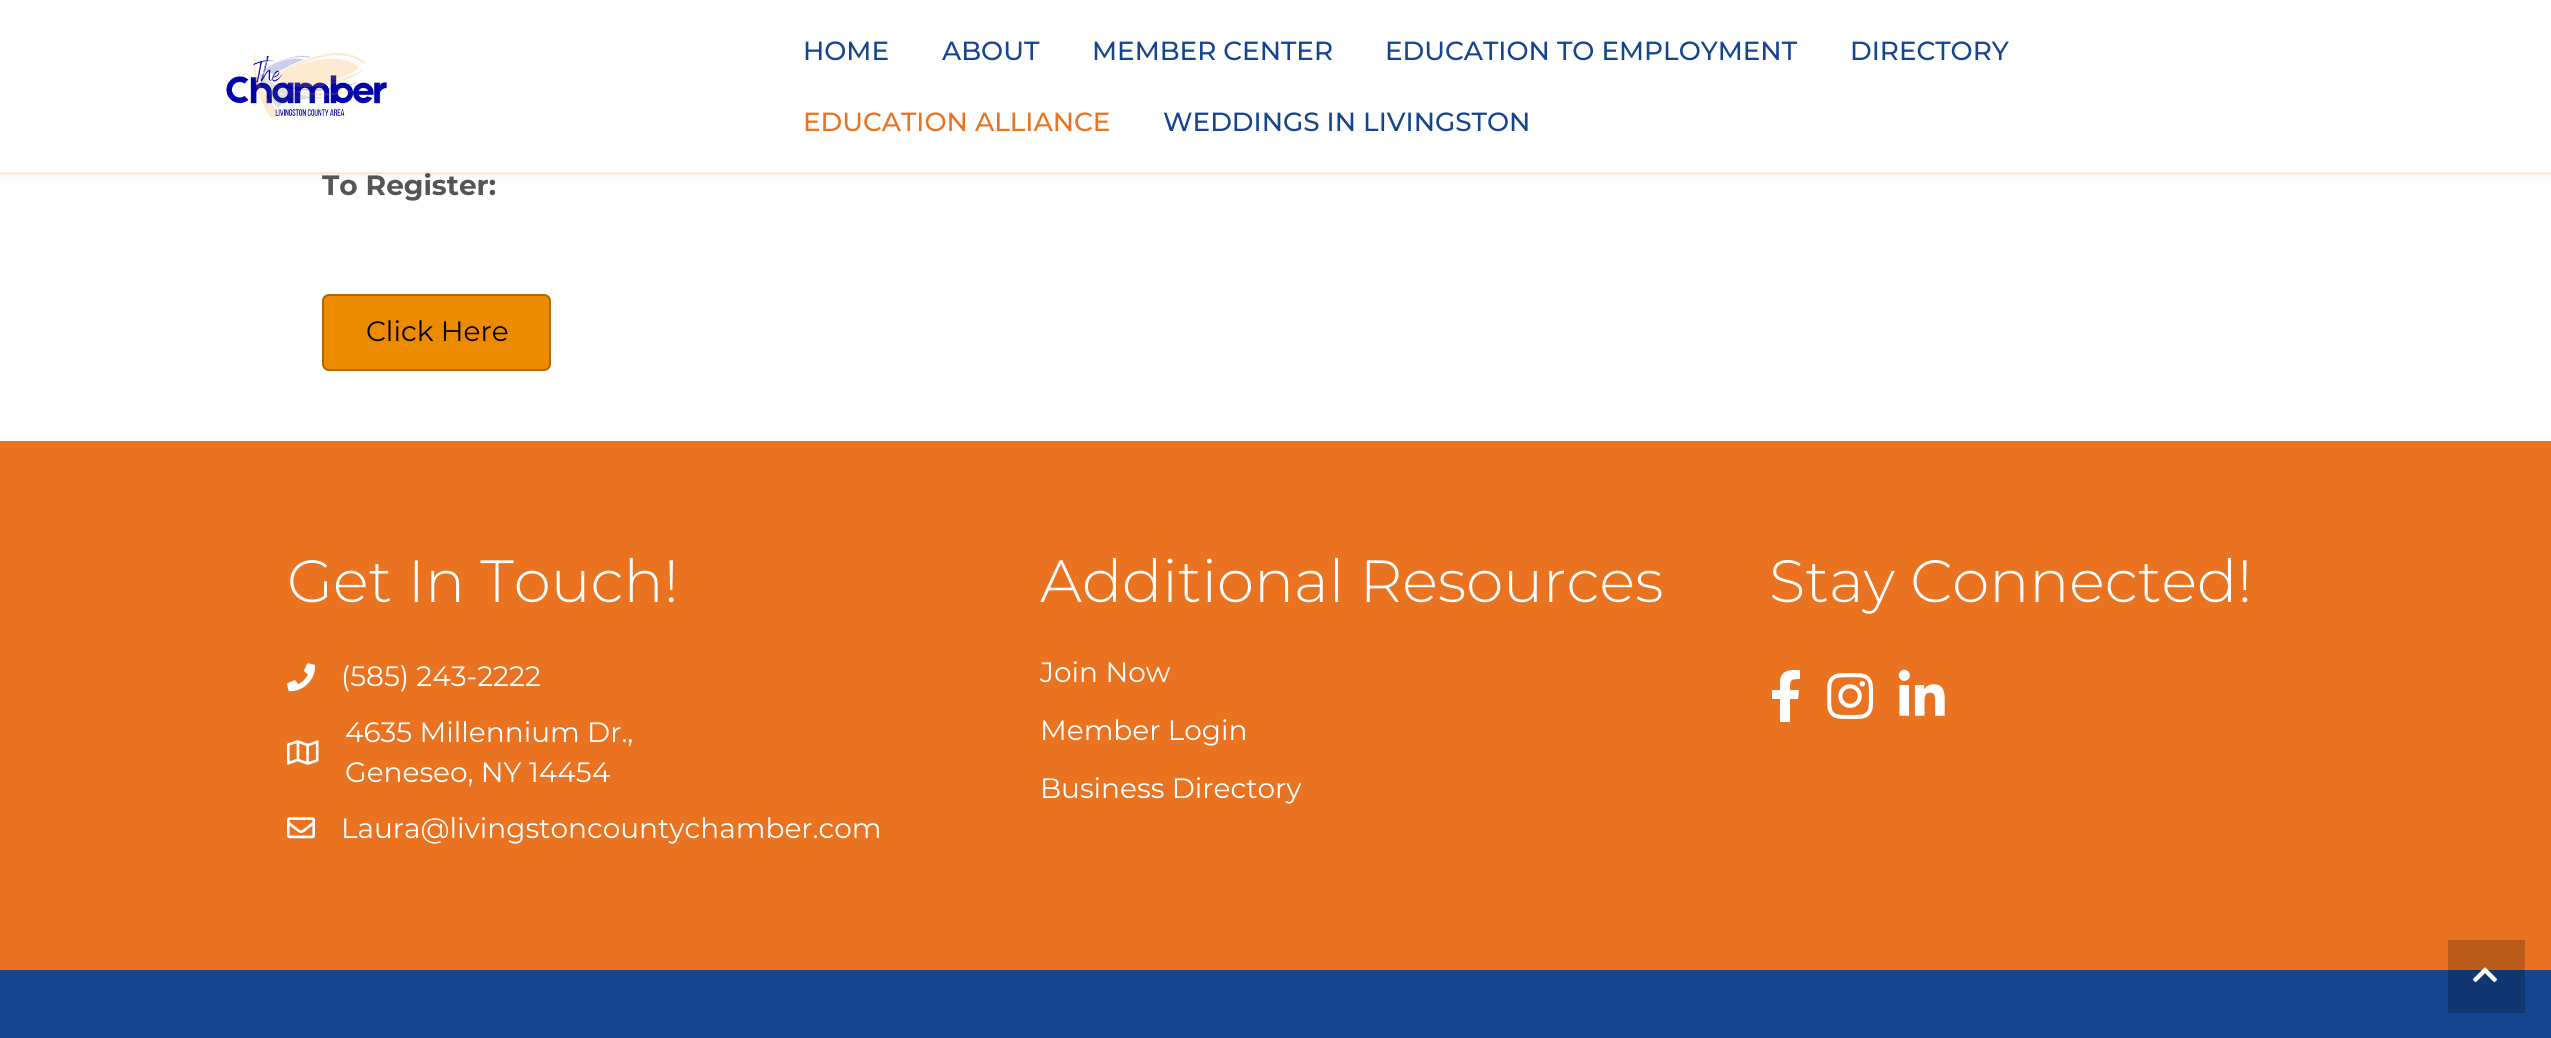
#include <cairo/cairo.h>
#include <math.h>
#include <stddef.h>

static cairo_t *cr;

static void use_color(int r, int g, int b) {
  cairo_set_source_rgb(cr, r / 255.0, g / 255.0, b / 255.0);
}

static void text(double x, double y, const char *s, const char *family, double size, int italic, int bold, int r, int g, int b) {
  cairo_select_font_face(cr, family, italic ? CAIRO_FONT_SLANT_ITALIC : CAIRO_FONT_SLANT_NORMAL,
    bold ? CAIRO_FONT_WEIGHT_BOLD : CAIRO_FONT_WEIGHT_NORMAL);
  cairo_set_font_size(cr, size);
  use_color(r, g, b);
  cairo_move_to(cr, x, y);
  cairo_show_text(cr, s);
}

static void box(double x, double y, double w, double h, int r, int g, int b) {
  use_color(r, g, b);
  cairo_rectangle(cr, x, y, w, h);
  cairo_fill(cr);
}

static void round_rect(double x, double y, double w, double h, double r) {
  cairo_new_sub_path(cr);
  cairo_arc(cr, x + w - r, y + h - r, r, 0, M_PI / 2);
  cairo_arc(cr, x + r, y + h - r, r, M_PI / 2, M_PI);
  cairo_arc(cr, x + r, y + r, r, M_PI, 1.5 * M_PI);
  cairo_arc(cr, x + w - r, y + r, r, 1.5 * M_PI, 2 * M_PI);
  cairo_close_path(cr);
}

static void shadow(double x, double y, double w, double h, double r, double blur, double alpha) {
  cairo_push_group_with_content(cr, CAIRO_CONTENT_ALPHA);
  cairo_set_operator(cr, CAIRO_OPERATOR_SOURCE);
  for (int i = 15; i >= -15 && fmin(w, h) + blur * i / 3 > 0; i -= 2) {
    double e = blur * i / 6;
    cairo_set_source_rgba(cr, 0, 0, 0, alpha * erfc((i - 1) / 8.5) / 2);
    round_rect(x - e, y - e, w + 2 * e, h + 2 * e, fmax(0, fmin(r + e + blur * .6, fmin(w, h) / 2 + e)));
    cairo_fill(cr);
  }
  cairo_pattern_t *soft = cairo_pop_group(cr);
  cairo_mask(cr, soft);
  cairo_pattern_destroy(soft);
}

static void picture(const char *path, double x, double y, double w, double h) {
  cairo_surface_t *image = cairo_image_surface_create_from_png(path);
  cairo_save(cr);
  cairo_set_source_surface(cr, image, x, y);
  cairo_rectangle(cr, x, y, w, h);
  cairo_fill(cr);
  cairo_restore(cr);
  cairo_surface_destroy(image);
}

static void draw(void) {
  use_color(255, 255, 255);
  cairo_paint(cr);
  use_color(0, 0, 0);
  shadow(0, 0, 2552, 173, 0, 6, 0.1);
  use_color(237, 139, 0);
  round_rect(323, 295, 227, 75, 6);
  cairo_fill_preserve(cr);
  use_color(176, 103, 0);
  cairo_stroke(cr);
  box(0, 441, 2551, 529, 234, 115, 34);
  box(2448, 940, 77, 30, 187, 92, 27);
  picture("img_02.png", 287, 663, 29, 29);
  picture("img_03.png", 287, 740, 32, 25);
  picture("img_04.png", 287, 817, 28, 22);
  use_color(255, 255, 255);
  cairo_new_path(cr);
  cairo_move_to(cr, 1798, 699);
  cairo_line_to(cr, 1790, 699);
  cairo_line_to(cr, 1790, 722);
  cairo_line_to(cr, 1780, 722);
  cairo_line_to(cr, 1780, 699);
  cairo_line_to(cr, 1772, 699);
  cairo_line_to(cr, 1772, 690);
  cairo_line_to(cr, 1780, 690);
  cairo_line_to(cr, 1780, 680);
  cairo_curve_to(cr, 1782, 669, 1791, 670, 1800, 670);
  cairo_line_to(cr, 1800, 679);
  cairo_curve_to(cr, 1790, 679, 1790, 680, 1790, 690);
  cairo_line_to(cr, 1799, 690);
  cairo_close_path(cr);
  cairo_fill(cr);
  picture("img_05.png", 1827, 673, 47, 46);
  picture("img_06.png", 1898, 669, 47, 47);
  box(0, 970, 2551, 68, 21, 69, 143);
  box(2448, 970, 77, 43, 17, 55, 114);
  picture("img_07.png", 2473, 967, 24, 15);
  text(322, 195, "To Register:", "Montserrat", 28, 0, 1, 85, 85, 85);
  box(0, 0, 2551, 173, 255, 255, 255);
  text(1163, 131, "WEDDINGS IN LIVINGSTON", "Montserrat Medium", 26.25, 0, 0, 21, 69, 143);
  text(803, 131, "EDUCATION ALLIANCE", "Montserrat Medium", 26.25, 0, 0, 234, 115, 34);
  text(1850, 60, "DIRECTORY", "Montserrat Medium", 26.25, 0, 0, 21, 69, 143);
  text(1385, 60, "EDUCATION TO EMPLOYMENT", "Montserrat Medium", 26.25, 0, 0, 21, 69, 143);
  text(1092, 60, "MEMBER CENTER", "Montserrat Medium", 26.25, 0, 0, 21, 69, 143);
  text(942, 60, "ABOUT", "Montserrat Medium", 26.25, 0, 0, 21, 69, 143);
  text(803, 60, "HOME", "Montserrat Medium", 26.25, 0, 0, 21, 69, 143);
  picture("img_01.png", 226, 47, 161, 72);
  cairo_set_source_rgba(cr, 0.918, 0.451, 0.133, 0.13);
  cairo_rectangle(cr, 0, 172, 2551, 2);
  cairo_fill(cr);
  text(366, 341, "Click Here", "Montserrat", 28, 0, 0, 0, 0, 0);
  text(287, 602, "Get In Touch!", "Montserrat Light", 59.5, 0, 0, 255, 255, 255);
  text(341, 686, "(585) 243-2222", "Montserrat", 28, 0, 0, 255, 255, 255);
  text(345, 742, "4635 Millennium Dr.,", "Montserrat", 28, 0, 0, 255, 255, 255);
  text(345, 782, "Geneseo, NY 14454", "Montserrat", 28, 0, 0, 255, 255, 255);
  text(341, 838, "Laura@livingstoncountychamber.com", "Montserrat", 28, 0, 0, 255, 255, 255);
  text(1040, 602, "Additional Resources", "Montserrat Light", 59.5, 0, 0, 255, 255, 255);
  text(1040, 682, "Join Now", "Montserrat", 28, 0, 0, 255, 255, 255);
  text(1040, 740, "Member Login", "Montserrat", 28, 0, 0, 255, 255, 255);
  text(1040, 798, "Business Directory", "Montserrat", 28, 0, 0, 255, 255, 255);
  text(1769, 602, "Stay Connected!", "Montserrat Light", 59.5, 0, 0, 255, 255, 255);
}

int main(void) {
  cairo_surface_t *surface = cairo_image_surface_create(CAIRO_FORMAT_RGB24, 2551, 1038);
  cr = cairo_create(surface);
  cairo_font_options_t *options = cairo_font_options_create();
  cairo_font_options_set_hint_metrics(options, CAIRO_HINT_METRICS_OFF);
  cairo_font_options_set_hint_style(options, CAIRO_HINT_STYLE_NONE);
  cairo_set_font_options(cr, options);
  cairo_set_miter_limit(cr, 4);
  draw();
  cairo_surface_write_to_png(surface, "out.png");
  cairo_font_options_destroy(options);
  cairo_destroy(cr);
  cairo_surface_destroy(surface);
  return 0;
}
